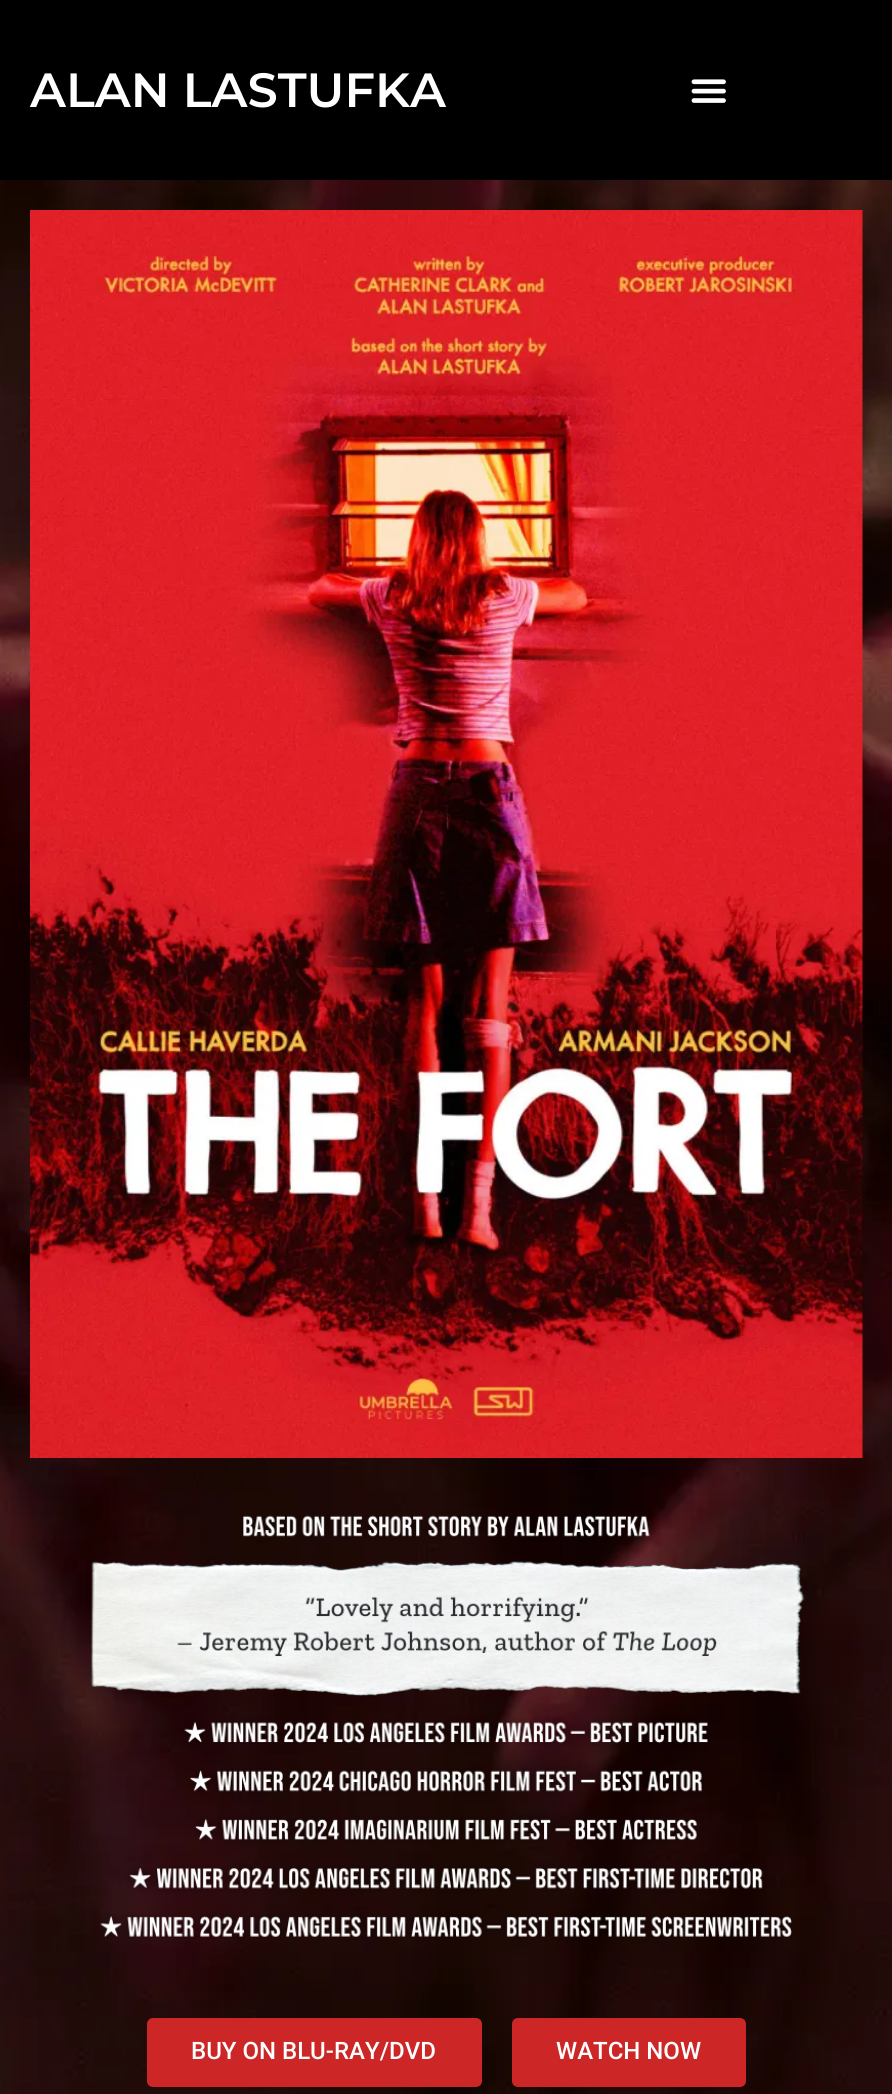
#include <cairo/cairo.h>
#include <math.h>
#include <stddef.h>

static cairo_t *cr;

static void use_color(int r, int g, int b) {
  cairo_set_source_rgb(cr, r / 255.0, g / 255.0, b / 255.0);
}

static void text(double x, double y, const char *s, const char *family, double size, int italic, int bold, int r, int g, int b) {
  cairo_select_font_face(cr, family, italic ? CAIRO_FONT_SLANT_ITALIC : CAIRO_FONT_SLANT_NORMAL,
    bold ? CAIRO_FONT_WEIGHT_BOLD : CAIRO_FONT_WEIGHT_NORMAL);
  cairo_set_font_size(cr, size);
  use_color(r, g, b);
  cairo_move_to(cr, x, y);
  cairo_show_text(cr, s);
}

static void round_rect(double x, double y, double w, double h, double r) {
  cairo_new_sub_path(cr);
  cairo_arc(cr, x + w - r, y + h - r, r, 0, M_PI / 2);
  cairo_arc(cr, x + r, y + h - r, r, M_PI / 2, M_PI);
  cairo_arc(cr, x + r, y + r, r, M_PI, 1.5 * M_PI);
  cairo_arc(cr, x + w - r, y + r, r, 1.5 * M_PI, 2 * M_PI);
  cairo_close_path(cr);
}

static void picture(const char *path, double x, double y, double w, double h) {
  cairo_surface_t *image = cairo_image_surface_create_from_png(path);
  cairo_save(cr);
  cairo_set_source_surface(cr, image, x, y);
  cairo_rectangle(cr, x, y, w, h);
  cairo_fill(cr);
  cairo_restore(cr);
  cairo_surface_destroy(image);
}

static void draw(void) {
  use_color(0, 0, 0);
  cairo_paint(cr);
  picture("img_01.png", 691, 79, 35, 24);
  picture("img_02.png", 0, 180, 892, 1914);
  picture("img_03.png", 30, 210, 833, 1248);
  picture("img_04.png", 91, 1515, 714, 424);
  use_color(204, 38, 38);
  round_rect(147, 2018, 335, 69, 6);
  cairo_fill(cr);
  round_rect(512, 2018, 234, 69, 6);
  cairo_fill(cr);
  text(30, 107, "ALAN LASTUFKA", "Montserrat SemiBold", 48, 0, 0, 255, 255, 255);
  text(191, 2059, "BUY ON BLU-RAY/DVD", "Roboto Medium", 24, 0, 0, 255, 255, 255);
  text(556, 2059, "WATCH NOW", "Roboto Medium", 24, 0, 0, 255, 255, 255);
}

int main(void) {
  cairo_surface_t *surface = cairo_image_surface_create(CAIRO_FORMAT_RGB24, 892, 2094);
  cr = cairo_create(surface);
  cairo_font_options_t *options = cairo_font_options_create();
  cairo_font_options_set_hint_metrics(options, CAIRO_HINT_METRICS_OFF);
  cairo_font_options_set_hint_style(options, CAIRO_HINT_STYLE_NONE);
  cairo_set_font_options(cr, options);
  cairo_set_miter_limit(cr, 4);
  draw();
  cairo_surface_write_to_png(surface, "out.png");
  cairo_font_options_destroy(options);
  cairo_destroy(cr);
  cairo_surface_destroy(surface);
  return 0;
}
